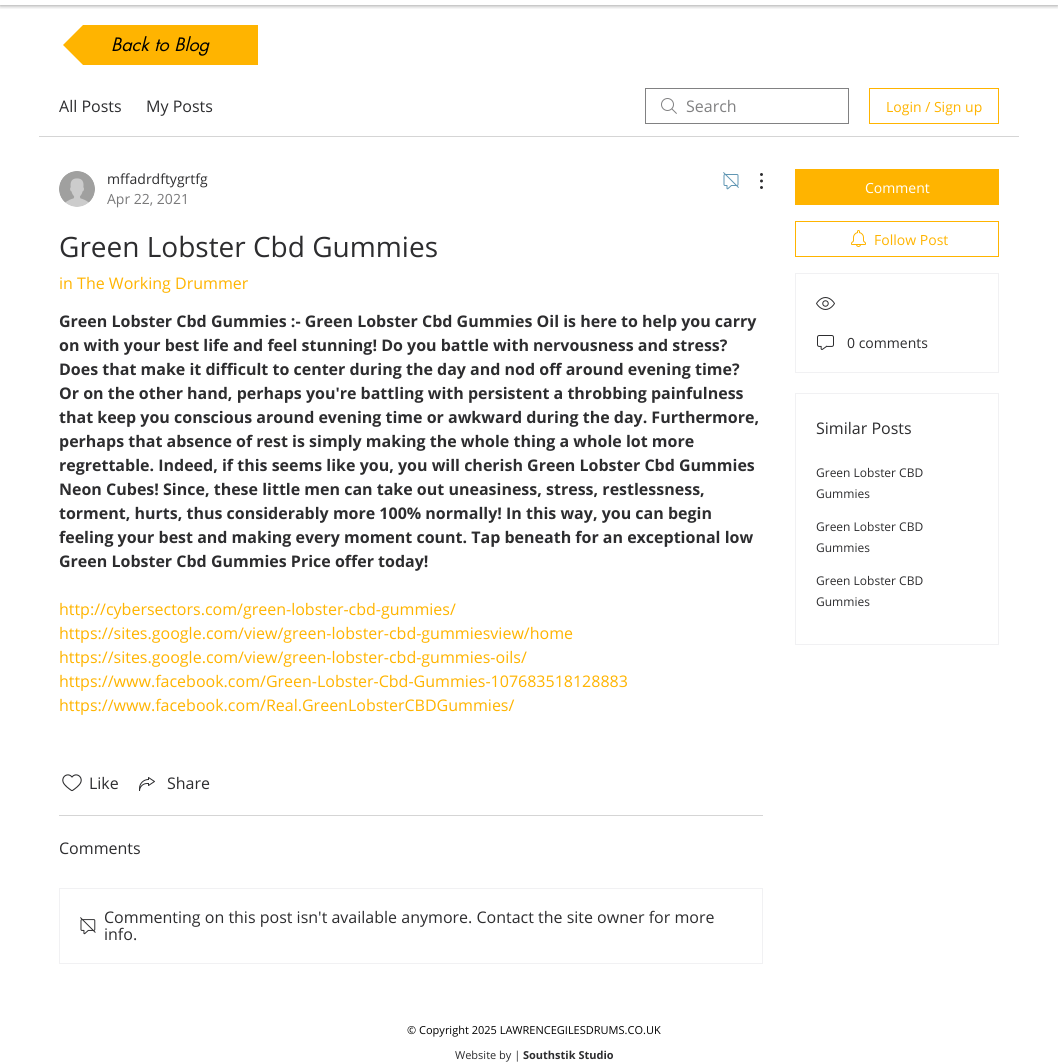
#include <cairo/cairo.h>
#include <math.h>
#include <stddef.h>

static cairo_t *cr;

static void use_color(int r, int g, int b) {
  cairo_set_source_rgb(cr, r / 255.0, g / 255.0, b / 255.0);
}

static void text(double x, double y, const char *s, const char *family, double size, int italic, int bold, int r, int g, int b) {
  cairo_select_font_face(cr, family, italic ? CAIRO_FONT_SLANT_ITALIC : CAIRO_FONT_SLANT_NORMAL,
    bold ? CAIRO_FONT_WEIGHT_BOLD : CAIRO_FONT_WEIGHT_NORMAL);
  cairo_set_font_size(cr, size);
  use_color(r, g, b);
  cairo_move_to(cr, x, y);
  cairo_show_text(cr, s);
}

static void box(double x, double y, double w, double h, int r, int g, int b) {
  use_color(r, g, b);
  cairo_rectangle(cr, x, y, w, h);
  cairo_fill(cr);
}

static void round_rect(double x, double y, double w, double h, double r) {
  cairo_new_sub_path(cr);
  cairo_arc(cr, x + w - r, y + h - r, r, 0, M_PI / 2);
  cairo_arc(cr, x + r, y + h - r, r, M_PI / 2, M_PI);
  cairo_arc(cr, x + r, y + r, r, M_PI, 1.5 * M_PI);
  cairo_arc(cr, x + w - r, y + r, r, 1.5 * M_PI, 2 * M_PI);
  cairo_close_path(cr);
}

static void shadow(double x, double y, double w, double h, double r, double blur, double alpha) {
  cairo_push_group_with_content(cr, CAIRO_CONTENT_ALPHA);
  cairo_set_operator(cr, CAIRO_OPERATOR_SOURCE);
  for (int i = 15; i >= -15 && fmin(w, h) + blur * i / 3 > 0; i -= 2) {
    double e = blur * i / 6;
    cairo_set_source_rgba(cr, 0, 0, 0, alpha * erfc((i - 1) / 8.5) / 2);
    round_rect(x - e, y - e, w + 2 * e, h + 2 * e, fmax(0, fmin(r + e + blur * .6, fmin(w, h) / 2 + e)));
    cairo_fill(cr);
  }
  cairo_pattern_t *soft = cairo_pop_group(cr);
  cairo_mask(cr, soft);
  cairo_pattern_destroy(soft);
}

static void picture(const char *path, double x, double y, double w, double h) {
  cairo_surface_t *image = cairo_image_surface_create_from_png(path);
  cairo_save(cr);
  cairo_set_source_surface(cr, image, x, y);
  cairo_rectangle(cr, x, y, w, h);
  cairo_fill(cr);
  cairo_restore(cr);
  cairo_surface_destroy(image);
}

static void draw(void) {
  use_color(255, 255, 255);
  cairo_paint(cr);
  cairo_save(cr);
  cairo_rectangle(cr, 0, 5, 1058, 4);
  cairo_clip(cr);
  use_color(0, 0, 0);
  shadow(0, 0, 1058, 5, 0, 2.5, 0.5);
  cairo_restore(cr);
  cairo_save(cr);
  cairo_rectangle(cr, 63, 25, 195, 40);
  cairo_clip(cr);
  use_color(255, 180, 0);
  cairo_new_path(cr);
  cairo_move_to(cr, 113, 45);
  cairo_line_to(cr, 63, 45);
  cairo_line_to(cr, 113, -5);
  cairo_close_path(cr);
  cairo_move_to(cr, 63, 45);
  cairo_line_to(cr, 113, 45);
  cairo_line_to(cr, 113, 95);
  cairo_close_path(cr);
  cairo_fill(cr);
  cairo_restore(cr);
  box(113, 25, 145, 40, 255, 180, 0);
  box(39, 136, 980, 1, 213, 213, 213);
  picture("img_01.png", 661, 98, 16, 16);
  cairo_rectangle(cr, 645.5, 88.5, 203, 35);
  use_color(129, 129, 130);
  cairo_set_line_width(cr, 1);
  cairo_stroke(cr);
  cairo_rectangle(cr, 869.5, 88.5, 129, 35);
  use_color(255, 180, 0);
  cairo_stroke(cr);
  picture("img_02.png", 59, 171, 36, 36);
  picture("img_03.png", 723, 172, 16, 18);
  picture("img_04.png", 760, 173, 3, 16);
  picture("img_05.png", 62, 774, 20, 18);
  picture("img_06.png", 139, 777, 16, 14);
  box(59, 815, 704, 1, 213, 213, 213);
  cairo_rectangle(cr, 59.5, 888.5, 703, 75);
  use_color(241, 241, 243);
  cairo_stroke(cr);
  picture("img_07.png", 80, 917, 16, 18);
  box(795, 169, 204, 36, 255, 180, 0);
  cairo_rectangle(cr, 795.5, 221.5, 203, 35);
  cairo_stroke(cr);
  picture("img_08.png", 851, 230, 15, 17);
  cairo_rectangle(cr, 795.5, 273.5, 203, 99);
  use_color(241, 241, 243);
  cairo_stroke(cr);
  picture("img_09.png", 816, 297, 19, 13);
  picture("img_10.png", 817, 335, 17, 15);
  cairo_rectangle(cr, 795.5, 393.5, 203, 251);
  cairo_stroke(cr);
  text(111, 51, "Back to Blog", "futura", 18, 1, 0, 0, 0, 0);
  text(59, 112, "All Posts", "Open Sans", 16, 0, 0, 45, 45, 47);
  text(146, 112, "My Posts", "Open Sans", 16, 0, 0, 45, 45, 47);
  text(686, 112, "Search", "Open Sans", 16, 0, 0, 129, 129, 130);
  text(886, 112, "Login / Sign up", "Open Sans", 14, 0, 0, 255, 180, 0);
  text(107, 184, "mffadrdftygrtfg", "Open Sans", 14, 0, 0, 45, 45, 47);
  text(107, 204, "Apr 22, 2021", "Open Sans", 14, 0, 0, 121, 121, 122);
  text(59, 257, "Green Lobster Cbd Gummies", "Open Sans", 28, 0, 0, 45, 45, 47);
  text(59, 289, "in The Working Drummer", "Open Sans", 16, 0, 0, 255, 180, 0);
  text(59, 327, "Green Lobster Cbd Gummies :- Green Lobster Cbd Gummies Oil is here to help you carry", "Open Sans", 16, 0, 1, 45, 45, 47);
  text(59, 351, "on with your best life and feel stunning! Do you battle with nervousness and stress?", "Open Sans", 16, 0, 1, 45, 45, 47);
  text(59, 375, "Does that make it difficult to center during the day and nod off around evening time?", "Open Sans", 16, 0, 1, 45, 45, 47);
  text(59, 399, "Or on the other hand, perhaps you're battling with persistent a throbbing painfulness", "Open Sans", 16, 0, 1, 45, 45, 47);
  text(59, 423, "that keep you conscious around evening time or awkward during the day. Furthermore,", "Open Sans", 16, 0, 1, 45, 45, 47);
  text(59, 447, "perhaps that absence of rest is simply making the whole thing a whole lot more", "Open Sans", 16, 0, 1, 45, 45, 47);
  text(59, 471, "regrettable. Indeed, if this seems like you, you will cherish Green Lobster Cbd Gummies", "Open Sans", 16, 0, 1, 45, 45, 47);
  text(59, 495, "Neon Cubes! Since, these little men can take out uneasiness, stress, restlessness,", "Open Sans", 16, 0, 1, 45, 45, 47);
  text(59, 519, "torment, hurts, thus considerably more 100% normally! In this way, you can begin", "Open Sans", 16, 0, 1, 45, 45, 47);
  text(59, 543, "feeling your best and making every moment count. Tap beneath for an exceptional low", "Open Sans", 16, 0, 1, 45, 45, 47);
  text(59, 567, "Green Lobster Cbd Gummies Price offer today!", "Open Sans", 16, 0, 1, 45, 45, 47);
  text(59, 615, "http://cybersectors.com/green-lobster-cbd-gummies/", "Open Sans", 16, 0, 0, 255, 180, 0);
  text(59, 639, "https://sites.google.com/view/green-lobster-cbd-gummiesview/home", "Open Sans", 16, 0, 0, 255, 180, 0);
  text(59, 663, "https://sites.google.com/view/green-lobster-cbd-gummies-oils/", "Open Sans", 16, 0, 0, 255, 180, 0);
  text(59, 687, "https://www.facebook.com/Green-Lobster-Cbd-Gummies-107683518128883", "Open Sans", 16, 0, 0, 255, 180, 0);
  text(59, 711, "https://www.facebook.com/Real.GreenLobsterCBDGummies/", "Open Sans", 16, 0, 0, 255, 180, 0);
  text(89, 789, "Like", "Open Sans", 16, 0, 0, 45, 45, 47);
  text(167, 789, "Share", "Open Sans", 16, 0, 0, 45, 45, 47);
  text(59, 854, "Comments", "Open Sans", 16, 0, 0, 45, 45, 47);
  text(104, 923, "Commenting on this post isn't available anymore. Contact the site owner for more", "Open Sans", 16, 0, 0, 45, 45, 47);
  text(104, 940, "info.", "Open Sans", 16, 0, 0, 45, 45, 47);
  text(865, 193, "Comment", "Open Sans", 14, 0, 0, 255, 255, 255);
  text(874, 245, "Follow Post", "Open Sans", 14, 0, 0, 255, 180, 0);
  text(847, 348, "0 comments", "Open Sans", 14, 0, 0, 45, 45, 47);
  text(816, 434, "Similar Posts", "Open Sans", 16, 0, 0, 45, 45, 47);
  text(816, 477, "Green Lobster CBD", "Open Sans", 12, 0, 0, 45, 45, 47);
  text(816, 498, "Gummies", "Open Sans", 12, 0, 0, 45, 45, 47);
  text(816, 531, "Green Lobster CBD", "Open Sans", 12, 0, 0, 45, 45, 47);
  text(816, 552, "Gummies", "Open Sans", 12, 0, 0, 45, 45, 47);
  text(816, 585, "Green Lobster CBD", "Open Sans", 12, 0, 0, 45, 45, 47);
  text(816, 606, "Gummies", "Open Sans", 12, 0, 0, 45, 45, 47);
  text(407, 1034, "© Copyright 2025 LAWRENCEGILESDRUMS.CO.UK", "Open Sans", 11, 0, 0, 0, 0, 0);
  text(455, 1059, "Website by |", "Open Sans", 11, 0, 0, 45, 45, 47);
  text(523, 1059, "Southstik Studio", "Open Sans", 11, 0, 1, 45, 45, 47);
}

int main(void) {
  cairo_surface_t *surface = cairo_image_surface_create(CAIRO_FORMAT_RGB24, 1058, 1062);
  cr = cairo_create(surface);
  cairo_font_options_t *options = cairo_font_options_create();
  cairo_font_options_set_hint_metrics(options, CAIRO_HINT_METRICS_OFF);
  cairo_font_options_set_hint_style(options, CAIRO_HINT_STYLE_NONE);
  cairo_set_font_options(cr, options);
  cairo_set_miter_limit(cr, 4);
  draw();
  cairo_surface_write_to_png(surface, "out.png");
  cairo_font_options_destroy(options);
  cairo_destroy(cr);
  cairo_surface_destroy(surface);
  return 0;
}
